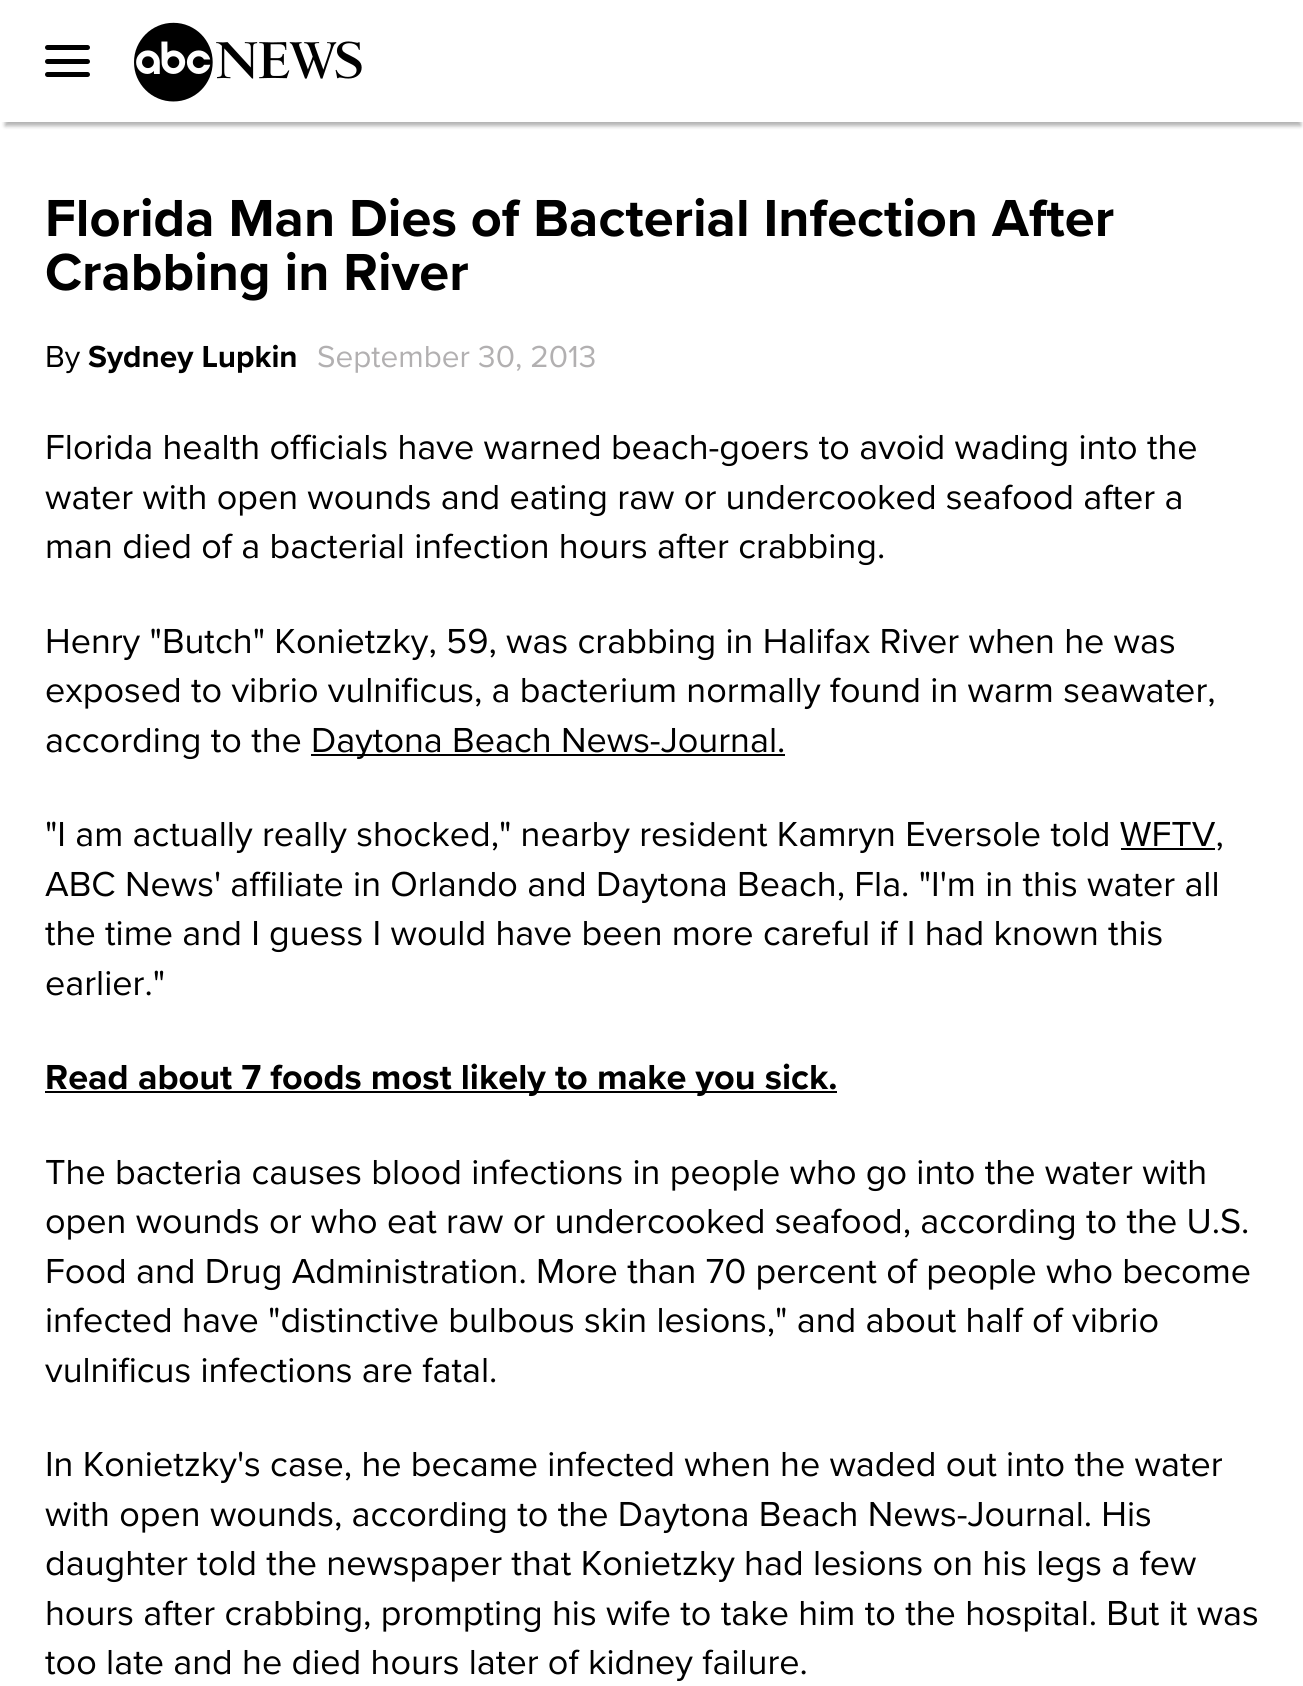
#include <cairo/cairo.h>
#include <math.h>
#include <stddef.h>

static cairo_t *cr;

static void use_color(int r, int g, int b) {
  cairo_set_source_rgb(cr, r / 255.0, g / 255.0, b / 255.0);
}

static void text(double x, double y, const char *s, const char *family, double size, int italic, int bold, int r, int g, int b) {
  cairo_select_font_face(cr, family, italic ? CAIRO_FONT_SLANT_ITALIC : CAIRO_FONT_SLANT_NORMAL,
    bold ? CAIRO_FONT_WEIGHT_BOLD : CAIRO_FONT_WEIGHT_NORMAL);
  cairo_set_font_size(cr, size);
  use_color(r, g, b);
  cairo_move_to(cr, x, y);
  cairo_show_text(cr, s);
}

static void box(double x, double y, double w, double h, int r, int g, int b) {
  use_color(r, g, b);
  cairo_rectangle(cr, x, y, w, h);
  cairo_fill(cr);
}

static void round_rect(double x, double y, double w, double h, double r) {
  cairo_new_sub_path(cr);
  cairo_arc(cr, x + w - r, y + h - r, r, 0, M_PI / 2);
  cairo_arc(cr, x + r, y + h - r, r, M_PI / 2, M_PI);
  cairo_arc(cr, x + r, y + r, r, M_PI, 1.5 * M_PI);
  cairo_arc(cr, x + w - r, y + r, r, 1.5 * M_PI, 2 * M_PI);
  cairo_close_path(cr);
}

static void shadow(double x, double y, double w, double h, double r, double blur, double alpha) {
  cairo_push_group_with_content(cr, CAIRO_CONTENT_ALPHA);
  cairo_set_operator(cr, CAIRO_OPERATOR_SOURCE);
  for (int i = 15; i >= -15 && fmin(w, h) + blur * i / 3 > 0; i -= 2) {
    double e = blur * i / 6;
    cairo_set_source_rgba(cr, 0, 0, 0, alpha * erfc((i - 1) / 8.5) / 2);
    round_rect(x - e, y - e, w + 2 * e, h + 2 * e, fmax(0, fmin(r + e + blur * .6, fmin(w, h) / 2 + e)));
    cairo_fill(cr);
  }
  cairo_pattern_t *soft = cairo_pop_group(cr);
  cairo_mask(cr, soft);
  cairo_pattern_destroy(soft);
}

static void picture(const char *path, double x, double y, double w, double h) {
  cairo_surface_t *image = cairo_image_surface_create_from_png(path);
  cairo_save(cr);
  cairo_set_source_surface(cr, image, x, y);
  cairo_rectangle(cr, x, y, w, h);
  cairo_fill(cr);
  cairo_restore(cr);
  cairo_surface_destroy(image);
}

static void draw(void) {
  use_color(255, 255, 255);
  cairo_paint(cr);
  use_color(0, 0, 0);
  shadow(5, 14, 1296, 112, 0, 2, 0.3);
  box(1, 10, 1302, 112, 255, 255, 255);
  use_color(0, 0, 0);
  round_rect(45, 59, 45, 5, 2.5);
  cairo_fill(cr);
  round_rect(45, 45, 45, 5, 2.5);
  cairo_fill(cr);
  round_rect(45, 72, 45, 5, 2.5);
  cairo_fill(cr);
  picture("img_01.png", 134, 22, 228, 80);
  box(311, 754, 474, 2, 0, 0, 0);
  box(1121, 848, 94, 2, 0, 0, 0);
  box(45, 1091, 792, 2, 0, 0, 0);
  text(45, 236, "Florida Man Dies of Bacterial Infection After", "Proxima Nova", 54, 0, 1, 0, 0, 0);
  text(45, 290, "Crabbing in River", "Proxima Nova", 54, 0, 1, 0, 0, 0);
  text(45, 367, "By", "Proxima Nova", 31.5, 0, 0, 0, 0, 0);
  text(88, 367, "Sydney Lupkin", "Proxima Nova", 31.5, 0, 1, 0, 0, 0);
  text(317, 367, "September 30, 2013", "Proxima Nova", 31.5, 0, 0, 178, 176, 177);
  text(45, 459, "Florida health officials have warned beach-goers to avoid wading into the", "Proxima Nova", 36, 0, 0, 0, 0, 0);
  text(45, 509, "water with open wounds and eating raw or undercooked seafood after a", "Proxima Nova", 36, 0, 0, 0, 0, 0);
  text(45, 558, "man died of a bacterial infection hours after crabbing.", "Proxima Nova", 36, 0, 0, 0, 0, 0);
  text(45, 653, "Henry \"Butch\" Konietzky, 59, was crabbing in Halifax River when he was", "Proxima Nova", 36, 0, 0, 0, 0, 0);
  text(45, 702, "exposed to vibrio vulnificus, a bacterium normally found in warm seawater,", "Proxima Nova", 36, 0, 0, 0, 0, 0);
  text(45, 752, "according to the", "Proxima Nova", 36, 0, 0, 0, 0, 0);
  text(311, 752, "Daytona Beach News-Journal.", "Proxima Nova", 36, 0, 0, 0, 0, 0);
  text(45, 846, "\"I am actually really shocked,\" nearby resident Kamryn Eversole told WFTV,", "Proxima Nova", 36, 0, 0, 0, 0, 0);
  text(45, 896, "ABC News' affiliate in Orlando and Daytona Beach, Fla. \"I'm in this water all", "Proxima Nova", 36, 0, 0, 0, 0, 0);
  text(45, 945, "the time and I guess I would have been more careful if I had known this", "Proxima Nova", 36, 0, 0, 0, 0, 0);
  text(45, 995, "earlier.\"", "Proxima Nova", 36, 0, 0, 0, 0, 0);
  text(45, 1089, "Read about 7 foods most likely to make you sick.", "Proxima Nova", 36, 0, 1, 0, 0, 0);
  text(45, 1184, "The bacteria causes blood infections in people who go into the water with", "Proxima Nova", 36, 0, 0, 0, 0, 0);
  text(45, 1233, "open wounds or who eat raw or undercooked seafood, according to the U.S.", "Proxima Nova", 36, 0, 0, 0, 0, 0);
  text(45, 1283, "Food and Drug Administration. More than 70 percent of people who become", "Proxima Nova", 36, 0, 0, 0, 0, 0);
  text(45, 1332, "infected have \"distinctive bulbous skin lesions,\" and about half of vibrio", "Proxima Nova", 36, 0, 0, 0, 0, 0);
  text(45, 1382, "vulnificus infections are fatal.", "Proxima Nova", 36, 0, 0, 0, 0, 0);
  text(45, 1476, "In Konietzky's case, he became infected when he waded out into the water", "Proxima Nova", 36, 0, 0, 0, 0, 0);
  text(45, 1526, "with open wounds, according to the Daytona Beach News-Journal. His", "Proxima Nova", 36, 0, 0, 0, 0, 0);
  text(45, 1575, "daughter told the newspaper that Konietzky had lesions on his legs a few", "Proxima Nova", 36, 0, 0, 0, 0, 0);
  text(45, 1625, "hours after crabbing, prompting his wife to take him to the hospital. But it was", "Proxima Nova", 36, 0, 0, 0, 0, 0);
  text(45, 1674, "too late and he died hours later of kidney failure.", "Proxima Nova", 36, 0, 0, 0, 0, 0);
}

int main(void) {
  cairo_surface_t *surface = cairo_image_surface_create(CAIRO_FORMAT_RGB24, 1303, 1686);
  cr = cairo_create(surface);
  cairo_font_options_t *options = cairo_font_options_create();
  cairo_font_options_set_hint_metrics(options, CAIRO_HINT_METRICS_OFF);
  cairo_font_options_set_hint_style(options, CAIRO_HINT_STYLE_NONE);
  cairo_set_font_options(cr, options);
  cairo_set_miter_limit(cr, 4);
  draw();
  cairo_surface_write_to_png(surface, "out.png");
  cairo_font_options_destroy(options);
  cairo_destroy(cr);
  cairo_surface_destroy(surface);
  return 0;
}
